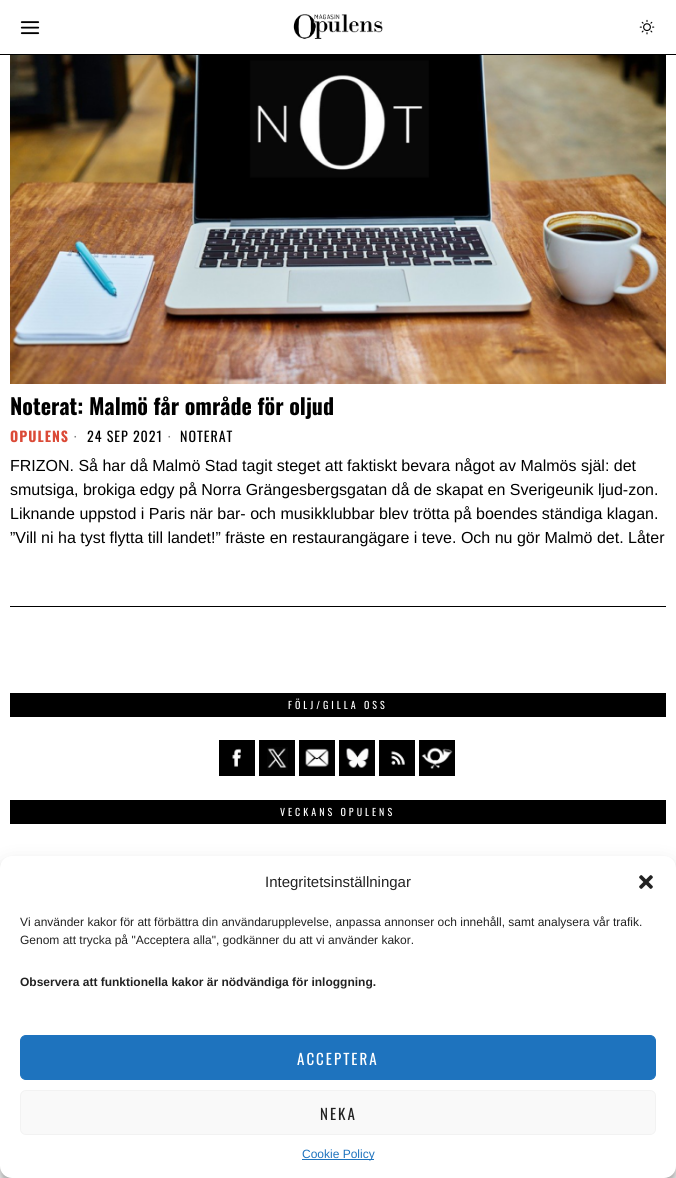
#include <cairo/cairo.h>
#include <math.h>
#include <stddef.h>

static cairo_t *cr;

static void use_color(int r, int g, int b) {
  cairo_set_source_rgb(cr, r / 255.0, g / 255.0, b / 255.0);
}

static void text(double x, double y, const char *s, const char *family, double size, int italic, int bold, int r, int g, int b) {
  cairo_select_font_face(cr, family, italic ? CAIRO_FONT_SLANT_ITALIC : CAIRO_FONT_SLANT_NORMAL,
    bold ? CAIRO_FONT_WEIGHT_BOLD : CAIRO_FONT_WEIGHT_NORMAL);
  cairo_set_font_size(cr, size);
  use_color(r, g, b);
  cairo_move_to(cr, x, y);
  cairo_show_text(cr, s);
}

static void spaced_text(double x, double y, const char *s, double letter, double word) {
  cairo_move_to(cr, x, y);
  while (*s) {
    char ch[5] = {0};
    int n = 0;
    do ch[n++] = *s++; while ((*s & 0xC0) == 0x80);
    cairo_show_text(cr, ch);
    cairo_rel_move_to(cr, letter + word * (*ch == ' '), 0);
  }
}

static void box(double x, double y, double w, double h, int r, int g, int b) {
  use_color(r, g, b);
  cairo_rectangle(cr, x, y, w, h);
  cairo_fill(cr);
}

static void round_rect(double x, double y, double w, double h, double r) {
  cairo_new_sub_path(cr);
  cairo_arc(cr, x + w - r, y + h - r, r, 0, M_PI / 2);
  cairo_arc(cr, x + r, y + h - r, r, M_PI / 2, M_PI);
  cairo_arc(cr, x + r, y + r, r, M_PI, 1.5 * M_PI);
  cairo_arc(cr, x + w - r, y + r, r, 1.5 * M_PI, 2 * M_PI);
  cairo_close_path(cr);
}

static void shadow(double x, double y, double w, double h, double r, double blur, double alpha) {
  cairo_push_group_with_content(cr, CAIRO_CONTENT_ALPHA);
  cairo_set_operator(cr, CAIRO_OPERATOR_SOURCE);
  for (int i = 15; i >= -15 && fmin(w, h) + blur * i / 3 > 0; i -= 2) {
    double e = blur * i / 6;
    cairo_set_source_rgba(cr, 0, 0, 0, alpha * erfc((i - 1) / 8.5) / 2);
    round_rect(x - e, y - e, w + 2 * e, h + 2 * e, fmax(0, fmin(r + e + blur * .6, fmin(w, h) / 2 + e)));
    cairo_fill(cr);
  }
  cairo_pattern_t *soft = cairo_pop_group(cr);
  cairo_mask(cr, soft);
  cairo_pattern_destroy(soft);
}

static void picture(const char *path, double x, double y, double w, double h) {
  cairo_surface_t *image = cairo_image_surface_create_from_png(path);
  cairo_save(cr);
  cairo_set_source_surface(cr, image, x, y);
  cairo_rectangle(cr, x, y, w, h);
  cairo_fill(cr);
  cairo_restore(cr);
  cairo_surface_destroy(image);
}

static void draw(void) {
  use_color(255, 255, 255);
  cairo_paint(cr);
  box(0, 54, 676, 1, 0, 0, 0);
  picture("img_01.png", 20, 21, 20, 14);
  picture("img_02.png", 293, 14, 90, 25);
  picture("img_03.png", 639, 19, 16, 16);
  box(10, 606, 656, 1, 0, 0, 0);
  picture("img_04.png", 10, 55, 656, 329);
  box(10, 693, 656, 24, 0, 0, 0);
  box(219, 740, 36, 36, 0, 0, 0);
  picture("img_05.png", 232, 748, 9, 19);
  box(259, 740, 36, 36, 0, 0, 0);
  picture("img_06.png", 267, 747, 21, 23);
  box(299, 740, 36, 36, 0, 0, 0);
  picture("img_07.png", 305, 748, 24, 19);
  box(339, 740, 36, 36, 0, 0, 0);
  picture("img_08.png", 346, 748, 23, 20);
  box(379, 740, 36, 36, 0, 0, 0);
  picture("img_09.png", 391, 751, 14, 14);
  box(419, 740, 36, 36, 0, 0, 0);
  picture("img_10.png", 421, 747, 32, 22);
  box(10, 800, 656, 24, 0, 0, 0);
  use_color(0, 0, 0);
  shadow(0, 862, 676, 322, 12, 3, 0.23);
  shadow(0, 866, 676, 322, 12, 10, 0.19);
  use_color(255, 255, 255);
  round_rect(0, 856, 676, 322, 12);
  cairo_fill(cr);
  picture("img_11.png", 639, 875, 14, 14);
  use_color(30, 115, 190);
  round_rect(20.5, 1035.5, 635, 44, 5.5);
  cairo_fill_preserve(cr);
  cairo_set_line_width(cr, 1);
  cairo_stroke(cr);
  use_color(249, 249, 249);
  round_rect(20.5, 1090.5, 635, 44, 5.5);
  cairo_fill_preserve(cr);
  use_color(242, 242, 242);
  cairo_stroke(cr);
  box(302, 1159, 72, 1, 30, 115, 190);
  text(10, 415, "Noterat: Malmö får område för oljud", "Oswald", 22, 0, 1, 0, 0, 0);
  cairo_set_font_size(cr, 14);
  use_color(219, 74, 55);
  spaced_text(10, 442, "OPULENS", 1, 0);
  cairo_select_font_face(cr, "Oswald", CAIRO_FONT_SLANT_NORMAL, CAIRO_FONT_WEIGHT_NORMAL);
  use_color(128, 128, 128);
  spaced_text(74, 442, "·", 1, 0);
  use_color(0, 0, 0);
  spaced_text(87, 442, "24 SEP 2021", 1, 0);
  use_color(128, 128, 128);
  spaced_text(168, 442, "·", 1, 0);
  use_color(0, 0, 0);
  spaced_text(180, 442, "NOTERAT", 1, 0);
  text(10, 471, "FRIZON. Så har då Malmö Stad tagit steget att faktiskt bevara något av Malmös själ: det", "Liberation Sans", 16, 0, 0, 0, 0, 0);
  text(10, 495, "smutsiga, brokiga edgy på Norra Grängesbergsgatan då de skapat en Sverigeunik ljud-zon.", "Liberation Sans", 16, 0, 0, 0, 0, 0);
  text(10, 519, "Liknande uppstod i Paris när bar- och musikklubbar blev trötta på boendes ständiga klagan.", "Liberation Sans", 16, 0, 0, 0, 0, 0);
  text(10, 543, "”Vill ni ha tyst flytta till landet!” fräste en restaurangägare i teve. Och nu gör Malmö det. Låter", "Liberation Sans", 16, 0, 0, 0, 0, 0);
  cairo_select_font_face(cr, "Oswald", CAIRO_FONT_SLANT_NORMAL, CAIRO_FONT_WEIGHT_NORMAL);
  cairo_set_font_size(cr, 10);
  use_color(255, 255, 255);
  spaced_text(288, 709, "FÖLJ/GILLA OSS", 3, 0);
  spaced_text(280, 816, "VECKANS OPULENS", 3, 0);
  text(265, 887, "Integritetsinställningar", "Liberation Sans", 15, 0, 0, 34, 34, 34);
  text(20, 926, "Vi använder kakor för att förbättra din användarupplevelse, anpassa annonser och innehåll, samt analysera vår trafik.", "Liberation Sans", 12, 0, 0, 34, 34, 34);
  text(20, 944, "Genom att trycka på \"Acceptera alla\", godkänner du att vi använder kakor.", "Liberation Sans", 12, 0, 0, 34, 34, 34);
  text(20, 986, "Observera att funktionella kakor är nödvändiga för inloggning.", "Liberation Sans", 12, 0, 1, 34, 34, 34);
  cairo_select_font_face(cr, "Oswald", CAIRO_FONT_SLANT_NORMAL, CAIRO_FONT_WEIGHT_NORMAL);
  cairo_set_font_size(cr, 15);
  use_color(255, 255, 255);
  spaced_text(297, 1065, "ACCEPTERA", 2, 0);
  use_color(34, 34, 34);
  spaced_text(320, 1120, "NEKA", 2, 0);
  text(302, 1158, "Cookie Policy", "Liberation Sans", 12, 0, 0, 30, 115, 190);
}

int main(void) {
  cairo_surface_t *surface = cairo_image_surface_create(CAIRO_FORMAT_RGB24, 676, 1178);
  cr = cairo_create(surface);
  cairo_font_options_t *options = cairo_font_options_create();
  cairo_font_options_set_hint_metrics(options, CAIRO_HINT_METRICS_OFF);
  cairo_font_options_set_hint_style(options, CAIRO_HINT_STYLE_NONE);
  cairo_set_font_options(cr, options);
  cairo_set_miter_limit(cr, 4);
  draw();
  cairo_surface_write_to_png(surface, "out.png");
  cairo_font_options_destroy(options);
  cairo_destroy(cr);
  cairo_surface_destroy(surface);
  return 0;
}
